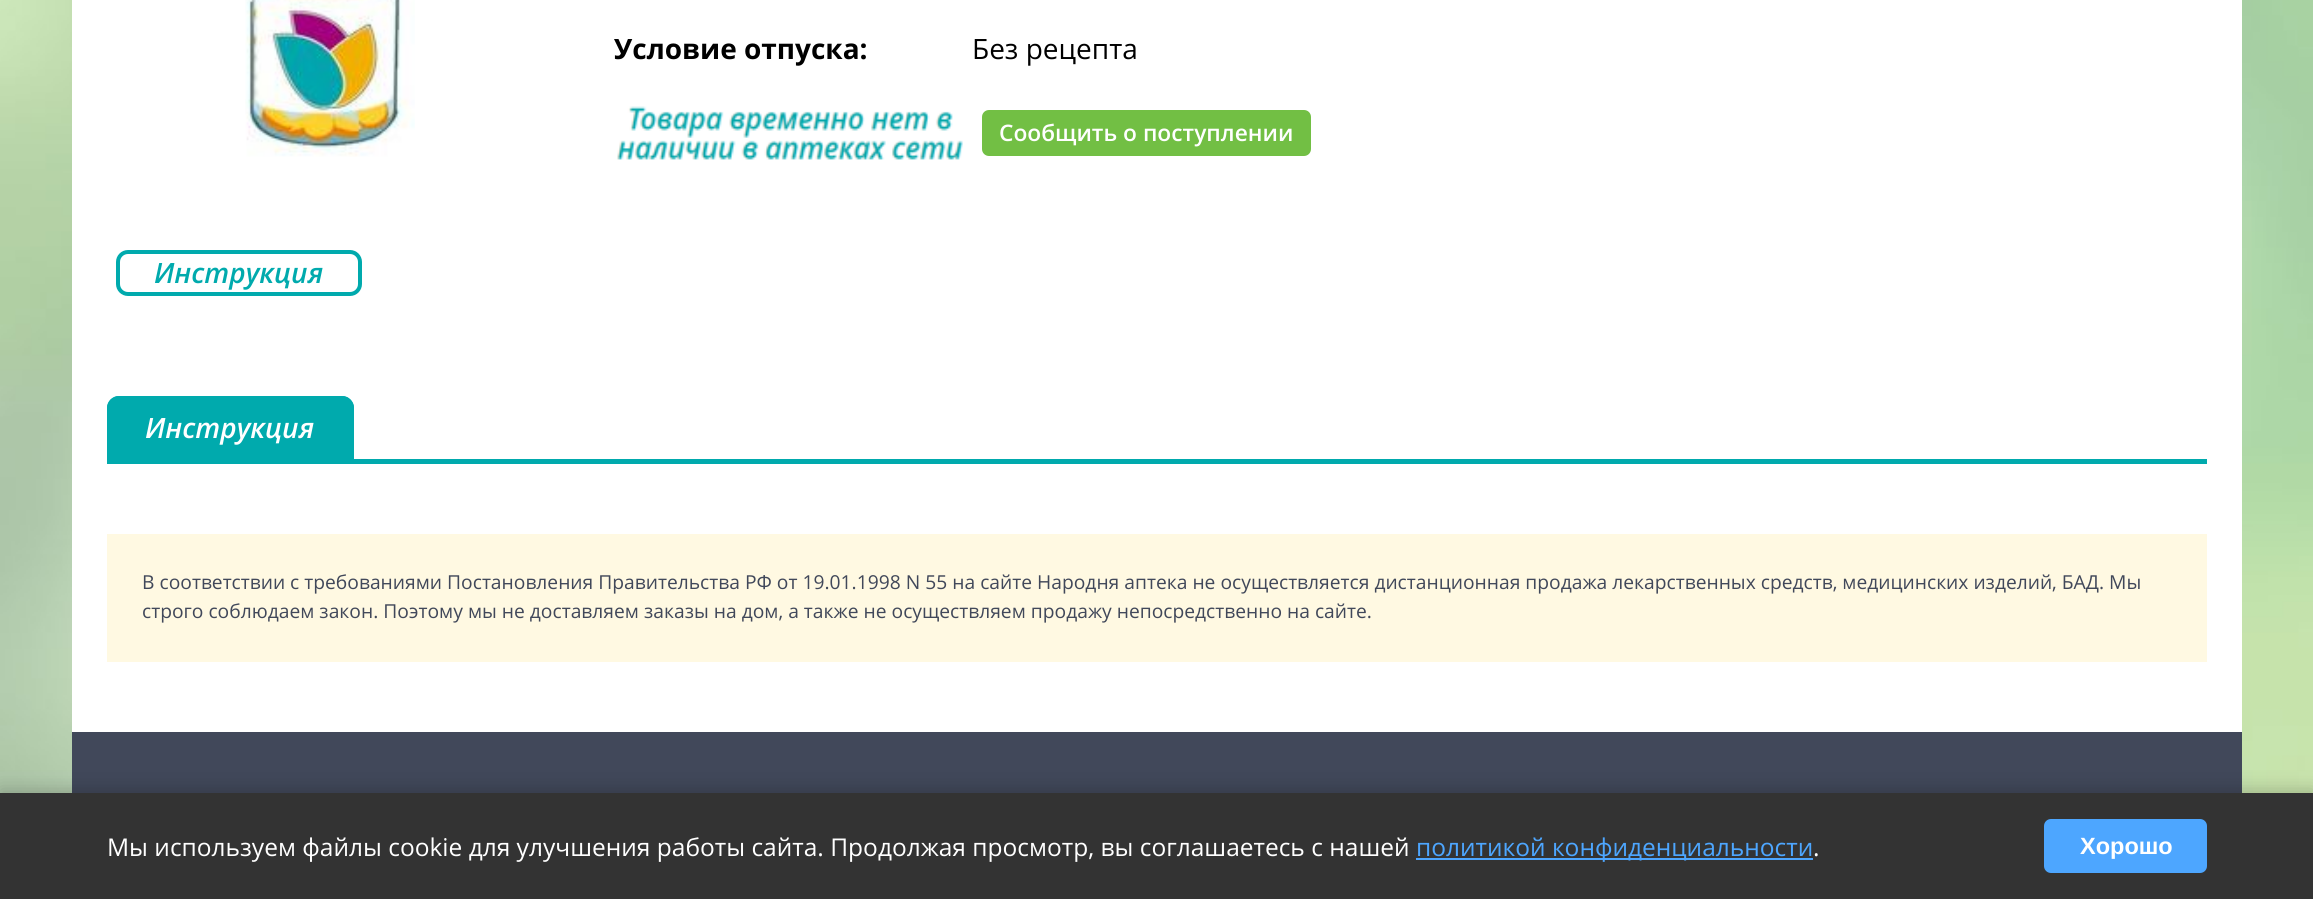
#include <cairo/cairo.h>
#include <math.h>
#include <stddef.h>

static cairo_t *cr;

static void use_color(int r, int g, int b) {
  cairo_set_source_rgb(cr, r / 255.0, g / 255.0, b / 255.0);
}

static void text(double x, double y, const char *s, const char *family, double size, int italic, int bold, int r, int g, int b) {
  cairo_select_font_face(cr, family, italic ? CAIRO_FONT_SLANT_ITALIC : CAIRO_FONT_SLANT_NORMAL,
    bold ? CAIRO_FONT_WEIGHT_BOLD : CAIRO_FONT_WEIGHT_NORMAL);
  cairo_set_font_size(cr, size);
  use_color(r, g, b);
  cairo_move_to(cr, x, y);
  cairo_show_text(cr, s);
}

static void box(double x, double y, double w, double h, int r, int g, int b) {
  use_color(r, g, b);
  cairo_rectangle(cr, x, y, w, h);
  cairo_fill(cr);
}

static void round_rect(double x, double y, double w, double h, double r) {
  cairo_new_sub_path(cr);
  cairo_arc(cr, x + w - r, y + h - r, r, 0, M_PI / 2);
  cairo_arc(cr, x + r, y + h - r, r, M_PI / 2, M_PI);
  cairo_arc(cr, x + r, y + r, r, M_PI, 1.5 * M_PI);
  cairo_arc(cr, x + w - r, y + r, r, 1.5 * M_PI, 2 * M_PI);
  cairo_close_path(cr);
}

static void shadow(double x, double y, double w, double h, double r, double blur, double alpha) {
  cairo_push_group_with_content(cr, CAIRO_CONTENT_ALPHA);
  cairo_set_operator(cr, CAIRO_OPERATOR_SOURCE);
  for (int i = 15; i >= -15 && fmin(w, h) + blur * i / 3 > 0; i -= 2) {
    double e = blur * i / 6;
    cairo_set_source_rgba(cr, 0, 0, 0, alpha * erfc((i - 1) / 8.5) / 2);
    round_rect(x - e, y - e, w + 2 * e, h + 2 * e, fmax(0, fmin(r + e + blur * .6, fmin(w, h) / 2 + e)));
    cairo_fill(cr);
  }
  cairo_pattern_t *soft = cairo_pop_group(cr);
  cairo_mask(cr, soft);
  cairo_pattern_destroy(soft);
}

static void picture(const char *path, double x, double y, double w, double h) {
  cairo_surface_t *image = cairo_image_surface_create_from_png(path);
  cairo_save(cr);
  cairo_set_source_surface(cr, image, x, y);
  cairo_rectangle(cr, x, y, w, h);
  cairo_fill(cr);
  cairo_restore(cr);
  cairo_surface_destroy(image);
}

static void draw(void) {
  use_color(255, 255, 255);
  cairo_paint(cr);
  picture("img_01.png", 0, 0, 2313, 793);
  box(72, 0, 2170, 732, 255, 255, 255);
  picture("img_02.png", 616, 106, 347, 54);
  use_color(114, 191, 68);
  round_rect(982, 110, 329, 46, 7);
  cairo_fill(cr);
  picture("img_03.png", 245, 0, 170, 157);
  round_rect(118, 252, 242, 42, 10);
  use_color(0, 170, 173);
  cairo_set_line_width(cr, 4);
  cairo_stroke(cr);
  box(107, 459, 2100, 5, 0, 170, 173);
  cairo_new_path(cr);
  cairo_move_to(cr, 119, 396);
  cairo_line_to(cr, 342, 396);
  cairo_curve_to(cr, 348.5, 396, 354, 401.5, 354, 408);
  cairo_line_to(cr, 354, 459);
  cairo_line_to(cr, 107, 459);
  cairo_line_to(cr, 107, 408);
  cairo_curve_to(cr, 107, 401.5, 112.5, 396, 119, 396);
  cairo_close_path(cr);
  cairo_fill(cr);
  cairo_save(cr);
  cairo_rectangle(cr, 107, 389, 2100, 70);
  cairo_clip(cr);
  round_rect(109, 398, 243, 73, 10);
  cairo_stroke(cr);
  cairo_restore(cr);
  box(107, 534, 2100, 128, 255, 249, 226);
  box(72, 732, 2170, 61, 65, 72, 90);
  use_color(0, 0, 0);
  shadow(0, 789, 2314, 107, 0, 9, 0.2);
  box(0, 793, 2313, 106, 51, 51, 51);
  box(1416, 858, 397, 2, 77, 166, 255);
  round_rect(2044, 819, 163, 54, 7);
  cairo_fill(cr);
  text(614, 59, "Условие отпуска:", "Open Sans", 28, 0, 1, 0, 0, 0);
  text(972, 59, "Без рецепта", "Open Sans", 28, 0, 0, 0, 0, 0);
  text(999, 141, "Сообщить о поступлении", "Open Sans SemiBold", 22.75, 0, 0, 255, 255, 255);
  text(154, 283, "Инструкция", "Open Sans SemiBold", 28, 1, 0, 0, 170, 173);
  text(145, 438, "Инструкция", "Open Sans SemiBold", 28, 1, 0, 255, 255, 255);
  text(142, 589, "В соответствии с требованиями Постановления Правительства РФ от 19.01.1998 N 55 на сайте Народня аптека не осуществляется дистанционная продажа лекарственных средств, медицинских изделий, БАД. Мы", "Open Sans", 19.25, 0, 0, 65, 72, 90);
  text(142, 618, "строго соблюдаем закон. Поэтому мы не доставляем заказы на дом, а также не осуществляем продажу непосредственно на сайте.", "Open Sans", 19.25, 0, 0, 65, 72, 90);
  text(107, 856, "Мы используем файлы cookie для улучшения работы сайта. Продолжая просмотр, вы соглашаетесь с нашей", "Open Sans", 24.5, 0, 0, 255, 255, 255);
  text(1416, 856, "политикой конфиденциальности", "Open Sans", 24.5, 0, 0, 77, 166, 255);
  text(1813, 856, ".", "Open Sans", 24.5, 0, 0, 255, 255, 255);
  text(2080, 854, "Хорошо", "Liberation Sans", 23.5, 0, 1, 255, 255, 255);
}

int main(void) {
  cairo_surface_t *surface = cairo_image_surface_create(CAIRO_FORMAT_RGB24, 2313, 899);
  cr = cairo_create(surface);
  cairo_font_options_t *options = cairo_font_options_create();
  cairo_font_options_set_hint_metrics(options, CAIRO_HINT_METRICS_OFF);
  cairo_font_options_set_hint_style(options, CAIRO_HINT_STYLE_NONE);
  cairo_set_font_options(cr, options);
  cairo_set_miter_limit(cr, 4);
  draw();
  cairo_surface_write_to_png(surface, "out.png");
  cairo_font_options_destroy(options);
  cairo_destroy(cr);
  cairo_surface_destroy(surface);
  return 0;
}
